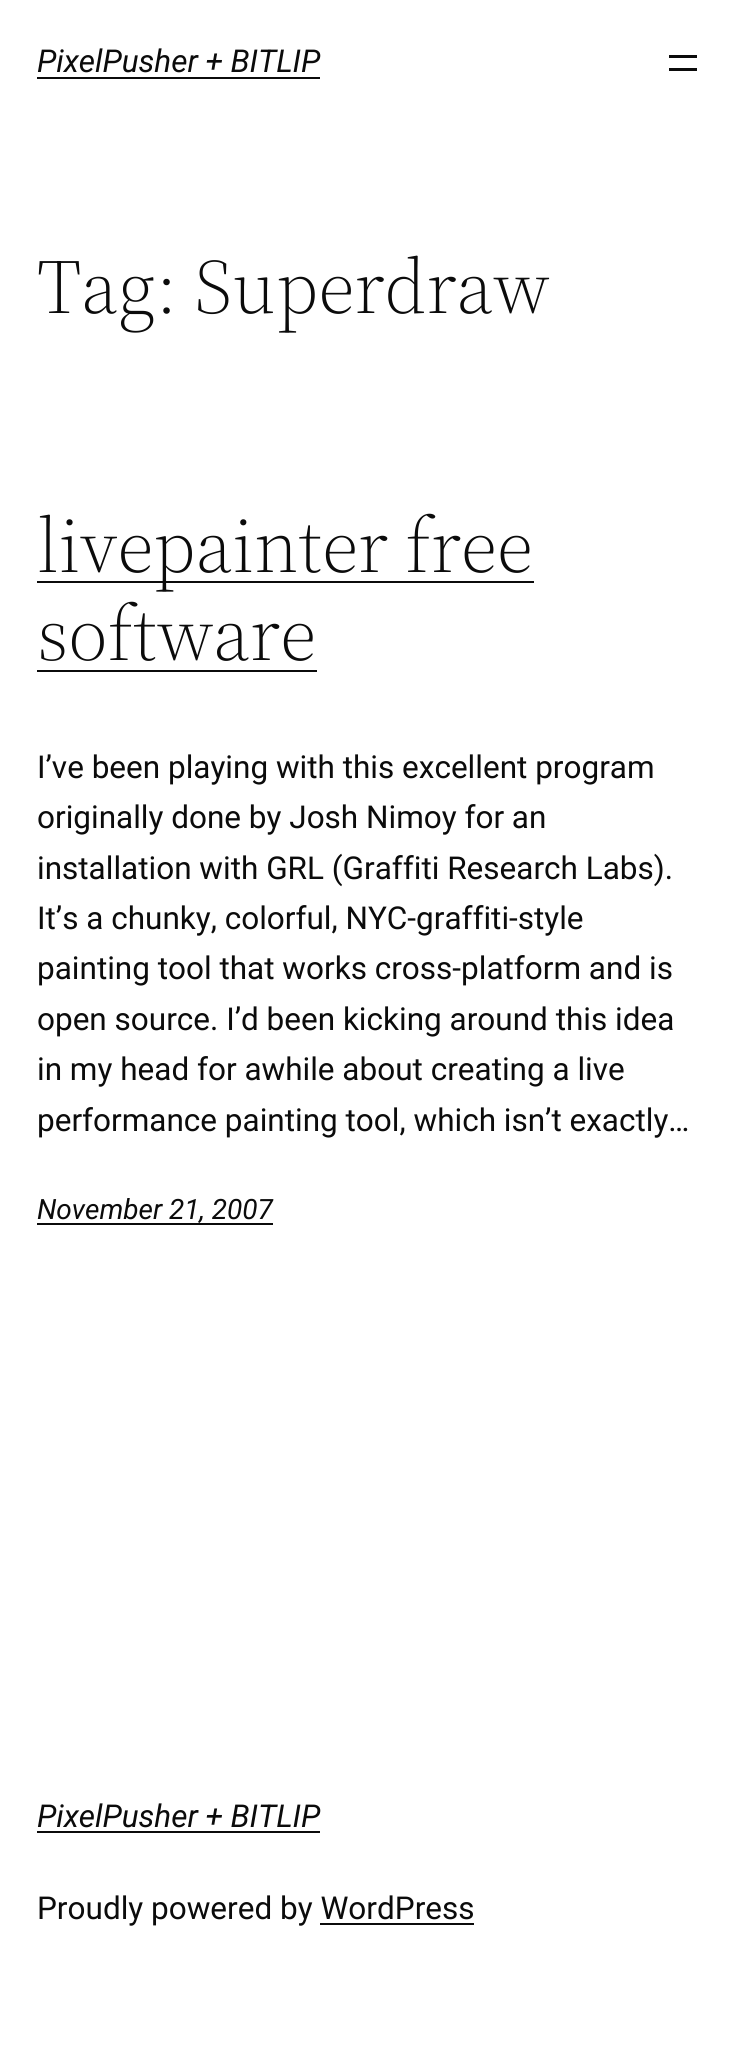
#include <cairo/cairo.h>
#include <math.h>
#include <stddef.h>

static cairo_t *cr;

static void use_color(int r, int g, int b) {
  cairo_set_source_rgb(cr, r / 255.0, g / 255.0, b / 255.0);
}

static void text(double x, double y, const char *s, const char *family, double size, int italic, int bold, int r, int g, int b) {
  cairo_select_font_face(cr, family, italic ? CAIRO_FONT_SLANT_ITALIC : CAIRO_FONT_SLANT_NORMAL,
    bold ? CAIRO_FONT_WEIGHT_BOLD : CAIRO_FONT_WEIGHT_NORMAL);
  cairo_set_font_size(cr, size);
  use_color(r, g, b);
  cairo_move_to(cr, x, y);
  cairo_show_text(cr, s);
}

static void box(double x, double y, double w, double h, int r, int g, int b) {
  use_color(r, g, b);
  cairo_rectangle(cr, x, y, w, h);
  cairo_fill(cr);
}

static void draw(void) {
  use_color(255, 255, 255);
  cairo_paint(cr);
  box(37, 77, 283, 2, 11, 11, 11);
  box(669, 55, 28, 3, 11, 11, 11);
  box(669, 68, 28, 3, 11, 11, 11);
  box(37, 581, 497, 2, 11, 11, 11);
  box(37, 670, 280, 2, 11, 11, 11);
  box(37, 1223, 236, 2, 11, 11, 11);
  box(37, 1831, 283, 2, 11, 11, 11);
  box(320, 1923, 154, 2, 11, 11, 11);
  text(37, 72, "PixelPusher + BITLIP", "Roboto", 31.5, 1, 0, 11, 11, 11);
  text(37, 313, "Tag: Superdraw", "Source Serif 4 Light", 77, 0, 0, 11, 11, 11);
  text(37, 572, "livepainter free", "Source Serif 4 Light", 77, 0, 0, 11, 11, 11);
  text(37, 660, "software", "Source Serif 4 Light", 77, 0, 0, 11, 11, 11);
  text(37, 778, "I’ve been playing with this excellent program", "Roboto", 31.5, 0, 0, 11, 11, 11);
  text(37, 828, "originally done by Josh Nimoy for an", "Roboto", 31.5, 0, 0, 11, 11, 11);
  text(37, 879, "installation with GRL (Graffiti Research Labs).", "Roboto", 31.5, 0, 0, 11, 11, 11);
  text(37, 929, "It’s a chunky, colorful, NYC-graffiti-style", "Roboto", 31.5, 0, 0, 11, 11, 11);
  text(37, 979, "painting tool that works cross-platform and is", "Roboto", 31.5, 0, 0, 11, 11, 11);
  text(37, 1030, "open source. I’d been kicking around this idea", "Roboto", 31.5, 0, 0, 11, 11, 11);
  text(37, 1080, "in my head for awhile about creating a live", "Roboto", 31.5, 0, 0, 11, 11, 11);
  text(37, 1131, "performance painting tool, which isn’t exactly…", "Roboto", 31.5, 0, 0, 11, 11, 11);
  text(37, 1219, "November 21, 2007", "Roboto", 28, 1, 0, 11, 11, 11);
  text(37, 1827, "PixelPusher + BITLIP", "Roboto", 31.5, 1, 0, 11, 11, 11);
  text(37, 1919, "Proudly powered by WordPress", "Roboto", 31.5, 0, 0, 11, 11, 11);
}

int main(void) {
  cairo_surface_t *surface = cairo_image_surface_create(CAIRO_FORMAT_RGB24, 739, 2060);
  cr = cairo_create(surface);
  cairo_font_options_t *options = cairo_font_options_create();
  cairo_font_options_set_hint_metrics(options, CAIRO_HINT_METRICS_OFF);
  cairo_font_options_set_hint_style(options, CAIRO_HINT_STYLE_NONE);
  cairo_set_font_options(cr, options);
  cairo_set_miter_limit(cr, 4);
  draw();
  cairo_surface_write_to_png(surface, "out.png");
  cairo_font_options_destroy(options);
  cairo_destroy(cr);
  cairo_surface_destroy(surface);
  return 0;
}
